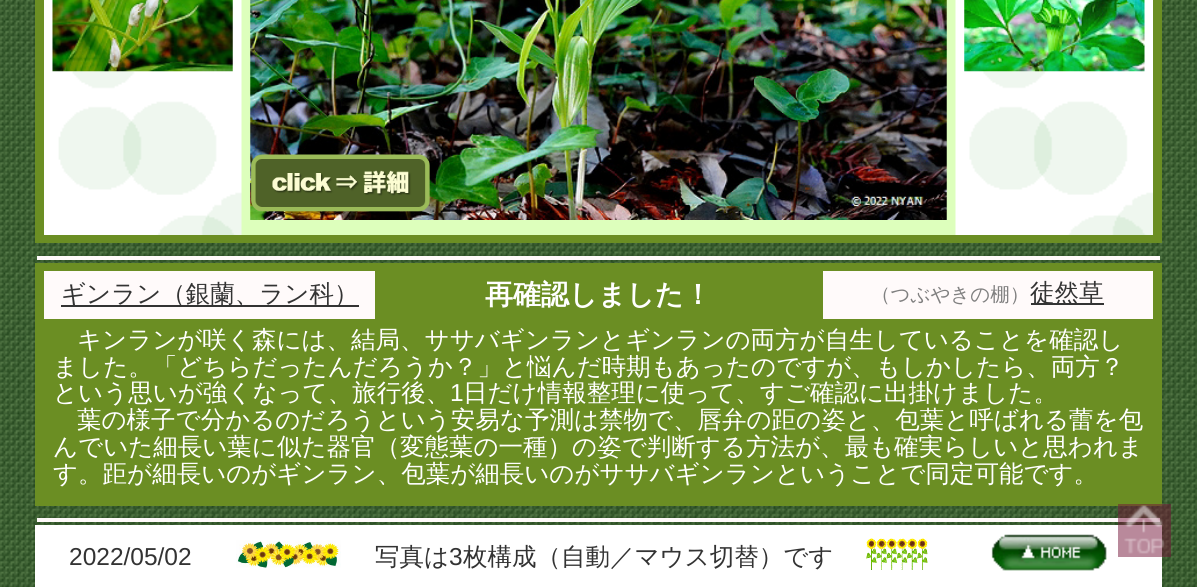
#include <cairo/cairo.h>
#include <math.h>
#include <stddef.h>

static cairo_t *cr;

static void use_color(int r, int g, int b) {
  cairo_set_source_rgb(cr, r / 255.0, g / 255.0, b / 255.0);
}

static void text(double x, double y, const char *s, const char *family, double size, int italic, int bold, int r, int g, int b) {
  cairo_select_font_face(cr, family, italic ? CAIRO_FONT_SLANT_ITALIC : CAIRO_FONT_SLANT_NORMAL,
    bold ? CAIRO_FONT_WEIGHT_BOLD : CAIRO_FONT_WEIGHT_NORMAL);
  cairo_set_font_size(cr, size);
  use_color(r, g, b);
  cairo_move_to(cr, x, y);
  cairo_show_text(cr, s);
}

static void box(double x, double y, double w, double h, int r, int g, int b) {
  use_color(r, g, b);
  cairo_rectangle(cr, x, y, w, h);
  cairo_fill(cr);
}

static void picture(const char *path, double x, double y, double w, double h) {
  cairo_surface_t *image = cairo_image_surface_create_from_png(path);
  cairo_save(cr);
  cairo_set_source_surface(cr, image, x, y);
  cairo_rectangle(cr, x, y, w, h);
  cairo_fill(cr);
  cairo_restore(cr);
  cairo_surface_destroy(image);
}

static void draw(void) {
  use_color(255, 255, 255);
  cairo_paint(cr);
  picture("img_01.png", 0, 0, 1197, 587);
  box(241, 0, 715, 235, 221, 255, 188);
  box(1153, 0, 9, 235, 107, 142, 35);
  box(44, 235, 1118, 8, 107, 142, 35);
  box(35, 0, 9, 243, 107, 142, 35);
  picture("img_02.png", 44, 0, 198, 235);
  picture("img_03.png", 52, 0, 181, 72);
  picture("img_04.png", 250, 0, 697, 220);
  picture("img_05.png", 251, 154, 179, 58);
  picture("img_06.png", 955, 0, 198, 235);
  picture("img_07.png", 964, 0, 181, 72);
  box(37, 256, 1123, 4, 255, 250, 250);
  box(44, 263, 1109, 8, 107, 142, 35);
  box(1153, 263, 9, 234, 107, 142, 35);
  box(44, 497, 1118, 9, 107, 142, 35);
  box(35, 263, 9, 243, 107, 142, 35);
  box(375, 271, 448, 48, 107, 142, 35);
  box(44, 271, 331, 48, 255, 250, 250);
  box(61, 305, 298, 2, 51, 51, 51);
  box(823, 271, 330, 48, 255, 250, 250);
  box(1031, 303, 73, 2, 51, 51, 51);
  box(44, 319, 1109, 178, 107, 142, 35);
  box(37, 518, 1123, 4, 255, 250, 250);
  box(35, 525, 1127, 62, 255, 255, 255);
  picture("img_08.png", 236, 540, 105, 28);
  picture("img_09.png", 866, 538, 62, 32);
  picture("img_10.png", 991, 534, 116, 37);
  cairo_set_source_rgba(cr, 0.455, 0.082, 0.22, 0.5);
  cairo_rectangle(cr, 1118, 504, 53, 53);
  cairo_fill(cr);
  picture("img_11.png", 1124, 505, 41, 49);
  text(61, 302, "ギンラン（銀蘭、ラン科）", "WenQuanYi Zen Hei Medium", 24.5, 0, 0, 51, 51, 51);
  text(485, 304, "再確認しました！", "WenQuanYi Zen Hei", 28, 0, 1, 255, 255, 255);
  text(871, 301, "（つぶやきの棚）", "WenQuanYi Zen Hei Medium", 19.5, 0, 0, 128, 128, 128);
  text(1030, 301, "徒然草", "WenQuanYi Zen Hei Medium", 24.5, 0, 0, 51, 51, 51);
  text(77, 348, "キンランが咲く森には、結局、ササバギンランとギンランの両方が自生していることを確認し", "WenQuanYi Zen Hei Medium", 24.5, 0, 0, 255, 255, 255);
  text(53, 375, "ました。「どちらだったんだろうか？」と悩んだ時期もあったのですが、もしかしたら、両方？", "WenQuanYi Zen Hei Medium", 24.5, 0, 0, 255, 255, 255);
  text(53, 401, "という思いが強くなって、旅行後、", "WenQuanYi Zen Hei Medium", 24.5, 0, 0, 255, 255, 255);
  text(450, 401, "1", "Liberation Sans", 24.5, 0, 0, 255, 255, 255);
  text(463, 401, "日だけ情報整理に使って、すご確認に出掛けました。", "WenQuanYi Zen Hei Medium", 24.5, 0, 0, 255, 255, 255);
  text(77, 428, "葉の様子で分かるのだろうという安易な予測は禁物で、唇弁の距の姿と、包葉と呼ばれる蕾を包", "WenQuanYi Zen Hei Medium", 24.5, 0, 0, 255, 255, 255);
  text(53, 455, "んでいた細長い葉に似た器官（変態葉の一種）の姿で判断する方法が、最も確実らしいと思われま", "WenQuanYi Zen Hei Medium", 24.5, 0, 0, 255, 255, 255);
  text(53, 482, "す。距が細長いのがギンラン、包葉が細長いのがササバギンランということで同定可能です。", "WenQuanYi Zen Hei Medium", 24.5, 0, 0, 255, 255, 255);
  text(69, 565, "2022/05/02", "Liberation Sans", 24.5, 0, 0, 51, 51, 51);
  text(375, 565, "写真は", "WenQuanYi Zen Hei Medium", 24.5, 0, 0, 51, 51, 51);
  text(449, 565, "3", "Liberation Sans", 24.5, 0, 0, 51, 51, 51);
  text(463, 565, "枚構成（自動／マウス切替）です", "WenQuanYi Zen Hei Medium", 24.5, 0, 0, 51, 51, 51);
}

int main(void) {
  cairo_surface_t *surface = cairo_image_surface_create(CAIRO_FORMAT_RGB24, 1197, 587);
  cr = cairo_create(surface);
  cairo_font_options_t *options = cairo_font_options_create();
  cairo_font_options_set_hint_metrics(options, CAIRO_HINT_METRICS_OFF);
  cairo_font_options_set_hint_style(options, CAIRO_HINT_STYLE_NONE);
  cairo_set_font_options(cr, options);
  cairo_set_miter_limit(cr, 4);
  draw();
  cairo_surface_write_to_png(surface, "out.png");
  cairo_font_options_destroy(options);
  cairo_destroy(cr);
  cairo_surface_destroy(surface);
  return 0;
}
